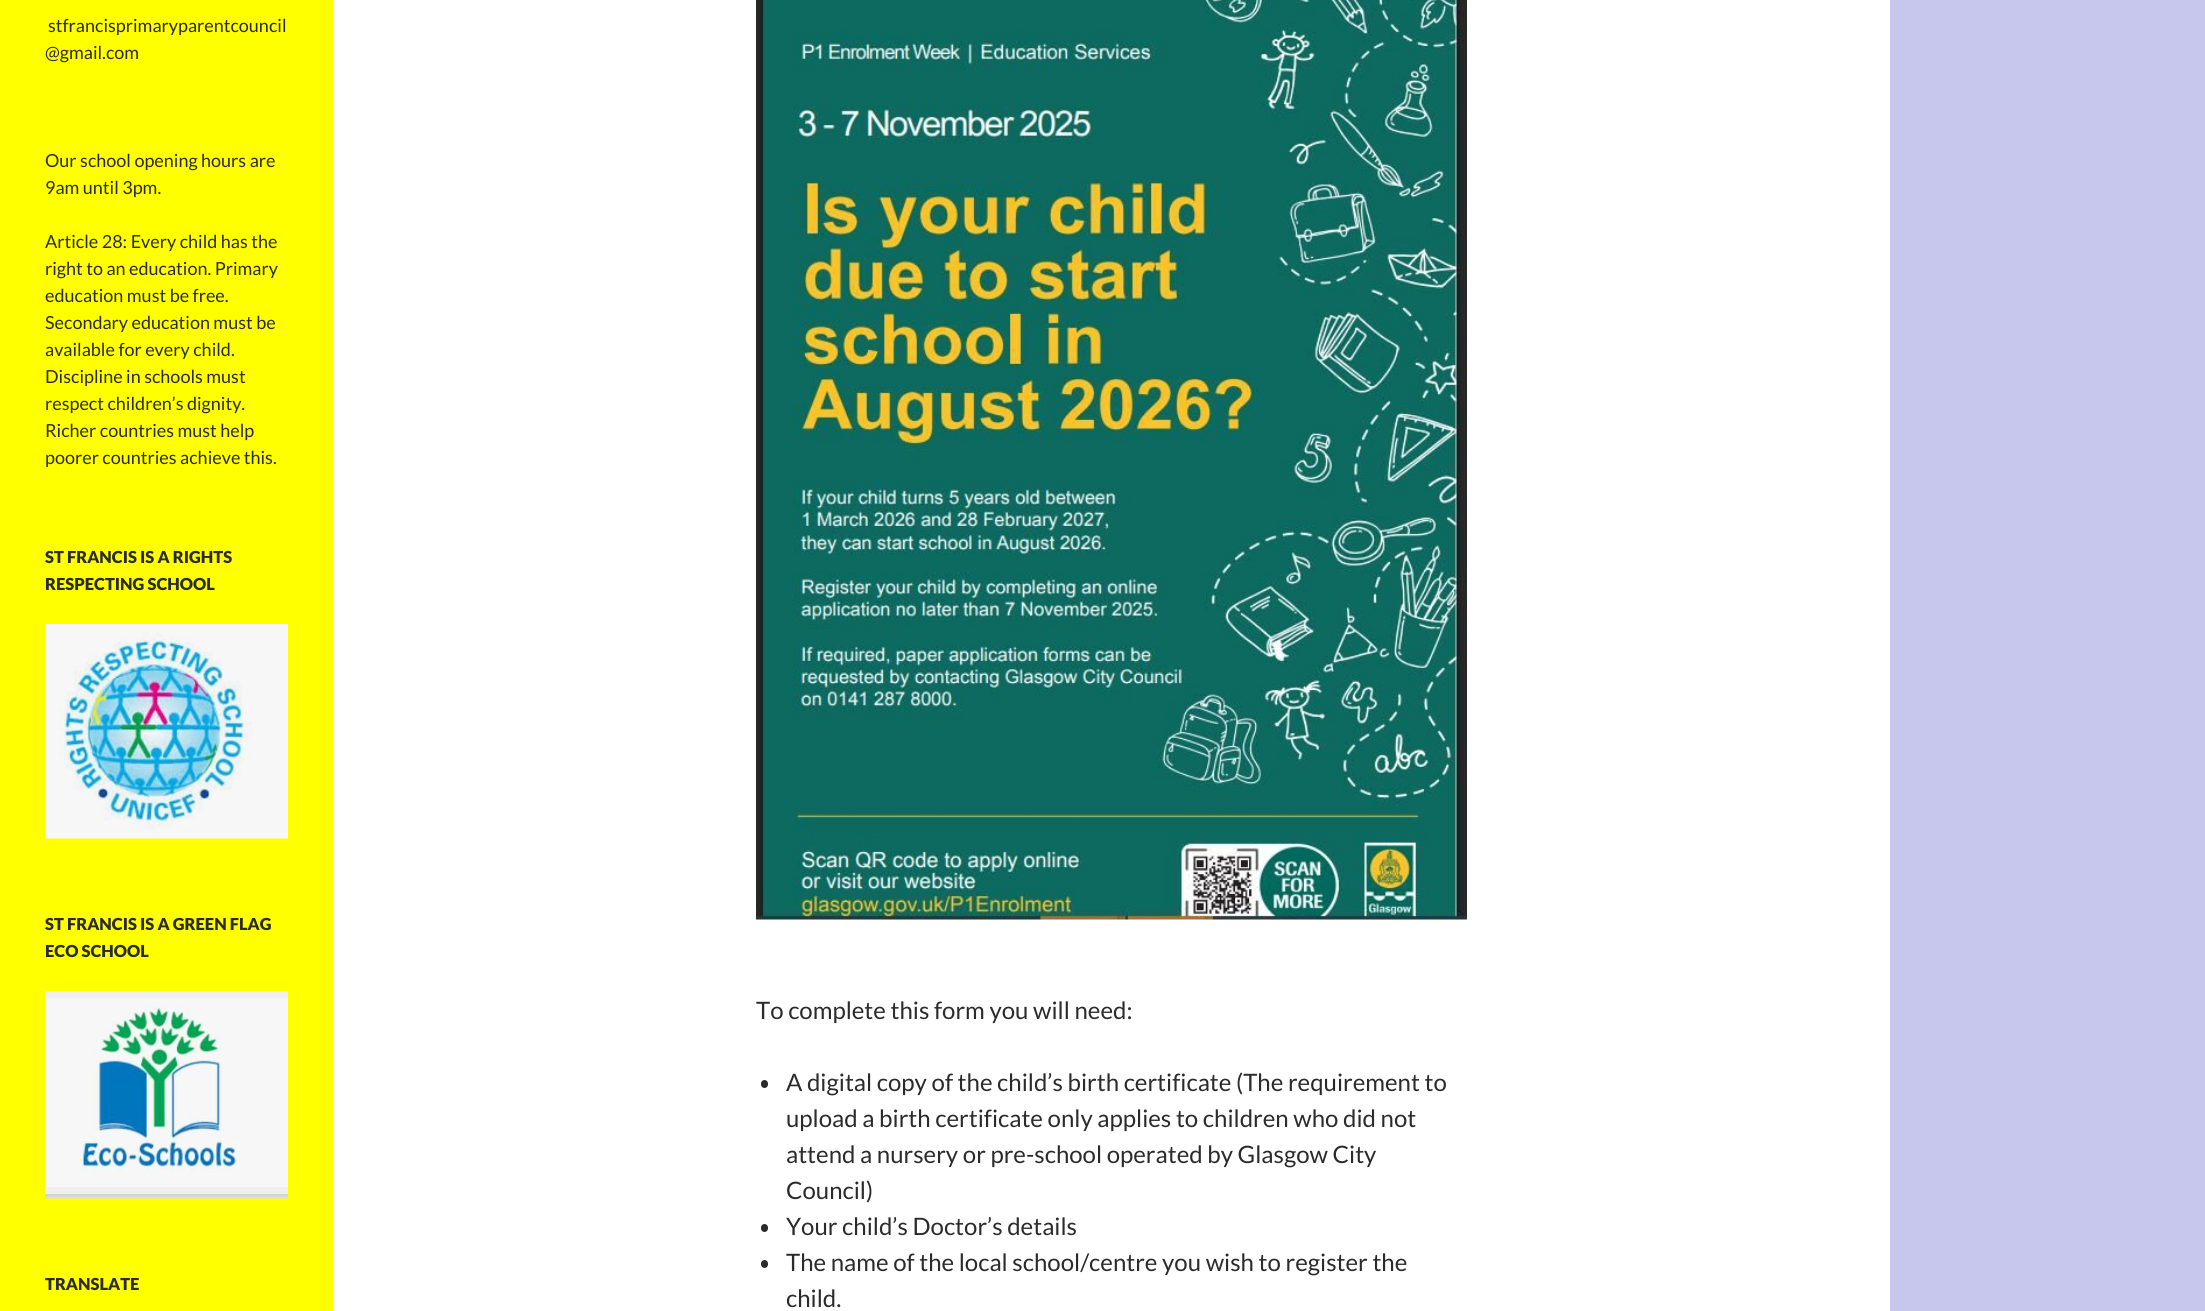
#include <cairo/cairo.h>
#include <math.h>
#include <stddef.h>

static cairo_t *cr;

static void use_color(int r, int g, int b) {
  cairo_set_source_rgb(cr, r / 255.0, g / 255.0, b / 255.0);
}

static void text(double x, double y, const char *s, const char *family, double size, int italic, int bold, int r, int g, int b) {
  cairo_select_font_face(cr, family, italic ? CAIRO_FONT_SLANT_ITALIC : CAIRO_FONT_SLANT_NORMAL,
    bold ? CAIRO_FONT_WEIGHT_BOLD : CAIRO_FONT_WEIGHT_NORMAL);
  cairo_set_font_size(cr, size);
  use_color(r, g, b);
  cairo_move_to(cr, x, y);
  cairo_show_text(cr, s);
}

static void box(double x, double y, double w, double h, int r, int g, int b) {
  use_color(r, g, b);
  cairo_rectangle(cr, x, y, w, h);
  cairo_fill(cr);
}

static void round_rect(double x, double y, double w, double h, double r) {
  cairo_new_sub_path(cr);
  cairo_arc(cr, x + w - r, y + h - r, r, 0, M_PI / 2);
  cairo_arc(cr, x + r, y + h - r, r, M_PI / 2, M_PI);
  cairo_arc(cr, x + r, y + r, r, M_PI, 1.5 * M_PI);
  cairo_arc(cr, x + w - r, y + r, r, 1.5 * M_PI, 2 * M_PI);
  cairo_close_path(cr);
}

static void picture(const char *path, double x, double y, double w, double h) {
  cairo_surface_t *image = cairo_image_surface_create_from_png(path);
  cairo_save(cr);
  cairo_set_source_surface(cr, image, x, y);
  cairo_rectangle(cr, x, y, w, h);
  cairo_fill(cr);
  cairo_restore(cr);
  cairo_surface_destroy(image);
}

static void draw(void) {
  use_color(199, 199, 237);
  cairo_paint(cr);
  box(333, 0, 1557, 1311, 255, 255, 255);
  box(0, 0, 333, 1311, 255, 255, 0);
  picture("img_01.png", 45, 624, 243, 215);
  picture("img_02.png", 45, 991, 243, 208);
  picture("img_03.png", 756, 0, 711, 920);
  use_color(43, 43, 43);
  round_rect(761, 1080, 7, 8, 3.5);
  cairo_fill(cr);
  round_rect(761, 1224, 7, 8, 3.5);
  cairo_fill(cr);
  round_rect(761, 1260, 7, 8, 3.5);
  cairo_fill(cr);
  text(48, 32, "stfrancisprimaryparentcouncil", "Lato", 18, 0, 0, 43, 43, 43);
  text(45, 59, "@gmail.com", "Lato", 18, 0, 0, 43, 43, 43);
  text(45, 167, "Our school opening hours are", "Lato", 18, 0, 0, 43, 43, 43);
  text(45, 194, "9am until 3pm.", "Lato", 18, 0, 0, 43, 43, 43);
  text(45, 248, "Article 28: Every child has the", "Lato", 18, 0, 0, 43, 43, 43);
  text(45, 275, "right to an education. Primary", "Lato", 18, 0, 0, 43, 43, 43);
  text(45, 302, "education must be free.", "Lato", 18, 0, 0, 43, 43, 43);
  text(45, 329, "Secondary education must be", "Lato", 18, 0, 0, 43, 43, 43);
  text(45, 356, "available for every child.", "Lato", 18, 0, 0, 43, 43, 43);
  text(45, 383, "Discipline in schools must", "Lato", 18, 0, 0, 43, 43, 43);
  text(45, 410, "respect children’s dignity.", "Lato", 18, 0, 0, 43, 43, 43);
  text(45, 437, "Richer countries must help", "Lato", 18, 0, 0, 43, 43, 43);
  text(45, 464, "poorer countries achieve this.", "Lato", 18, 0, 0, 43, 43, 43);
  text(45, 563, "ST FRANCIS IS A RIGHTS", "Lato Black", 16.5, 0, 0, 43, 43, 43);
  text(45, 590, "RESPECTING SCHOOL", "Lato Black", 16.5, 0, 0, 43, 43, 43);
  text(45, 930, "ST FRANCIS IS A GREEN FLAG", "Lato Black", 16.5, 0, 0, 43, 43, 43);
  text(45, 957, "ECO SCHOOL", "Lato Black", 16.5, 0, 0, 43, 43, 43);
  text(45, 1290, "TRANSLATE", "Lato Black", 16.5, 0, 0, 43, 43, 43);
  text(756, 1019, "To complete this form you will need:", "Lato", 24, 0, 0, 43, 43, 43);
  text(786, 1091, "A digital copy of the child’s birth certificate (The requirement to", "Lato", 24, 0, 0, 43, 43, 43);
  text(786, 1127, "upload a birth certificate only applies to children who did not", "Lato", 24, 0, 0, 43, 43, 43);
  text(786, 1163, "attend a nursery or pre-school operated by Glasgow City", "Lato", 24, 0, 0, 43, 43, 43);
  text(786, 1199, "Council)", "Lato", 24, 0, 0, 43, 43, 43);
  text(786, 1235, "Your child’s Doctor’s details", "Lato", 24, 0, 0, 43, 43, 43);
  text(786, 1271, "The name of the local school/centre you wish to register the", "Lato", 24, 0, 0, 43, 43, 43);
  text(786, 1307, "child.", "Lato", 24, 0, 0, 43, 43, 43);
}

int main(void) {
  cairo_surface_t *surface = cairo_image_surface_create(CAIRO_FORMAT_RGB24, 2205, 1311);
  cr = cairo_create(surface);
  cairo_font_options_t *options = cairo_font_options_create();
  cairo_font_options_set_hint_metrics(options, CAIRO_HINT_METRICS_OFF);
  cairo_font_options_set_hint_style(options, CAIRO_HINT_STYLE_NONE);
  cairo_set_font_options(cr, options);
  cairo_set_miter_limit(cr, 4);
  draw();
  cairo_surface_write_to_png(surface, "out.png");
  cairo_font_options_destroy(options);
  cairo_destroy(cr);
  cairo_surface_destroy(surface);
  return 0;
}
